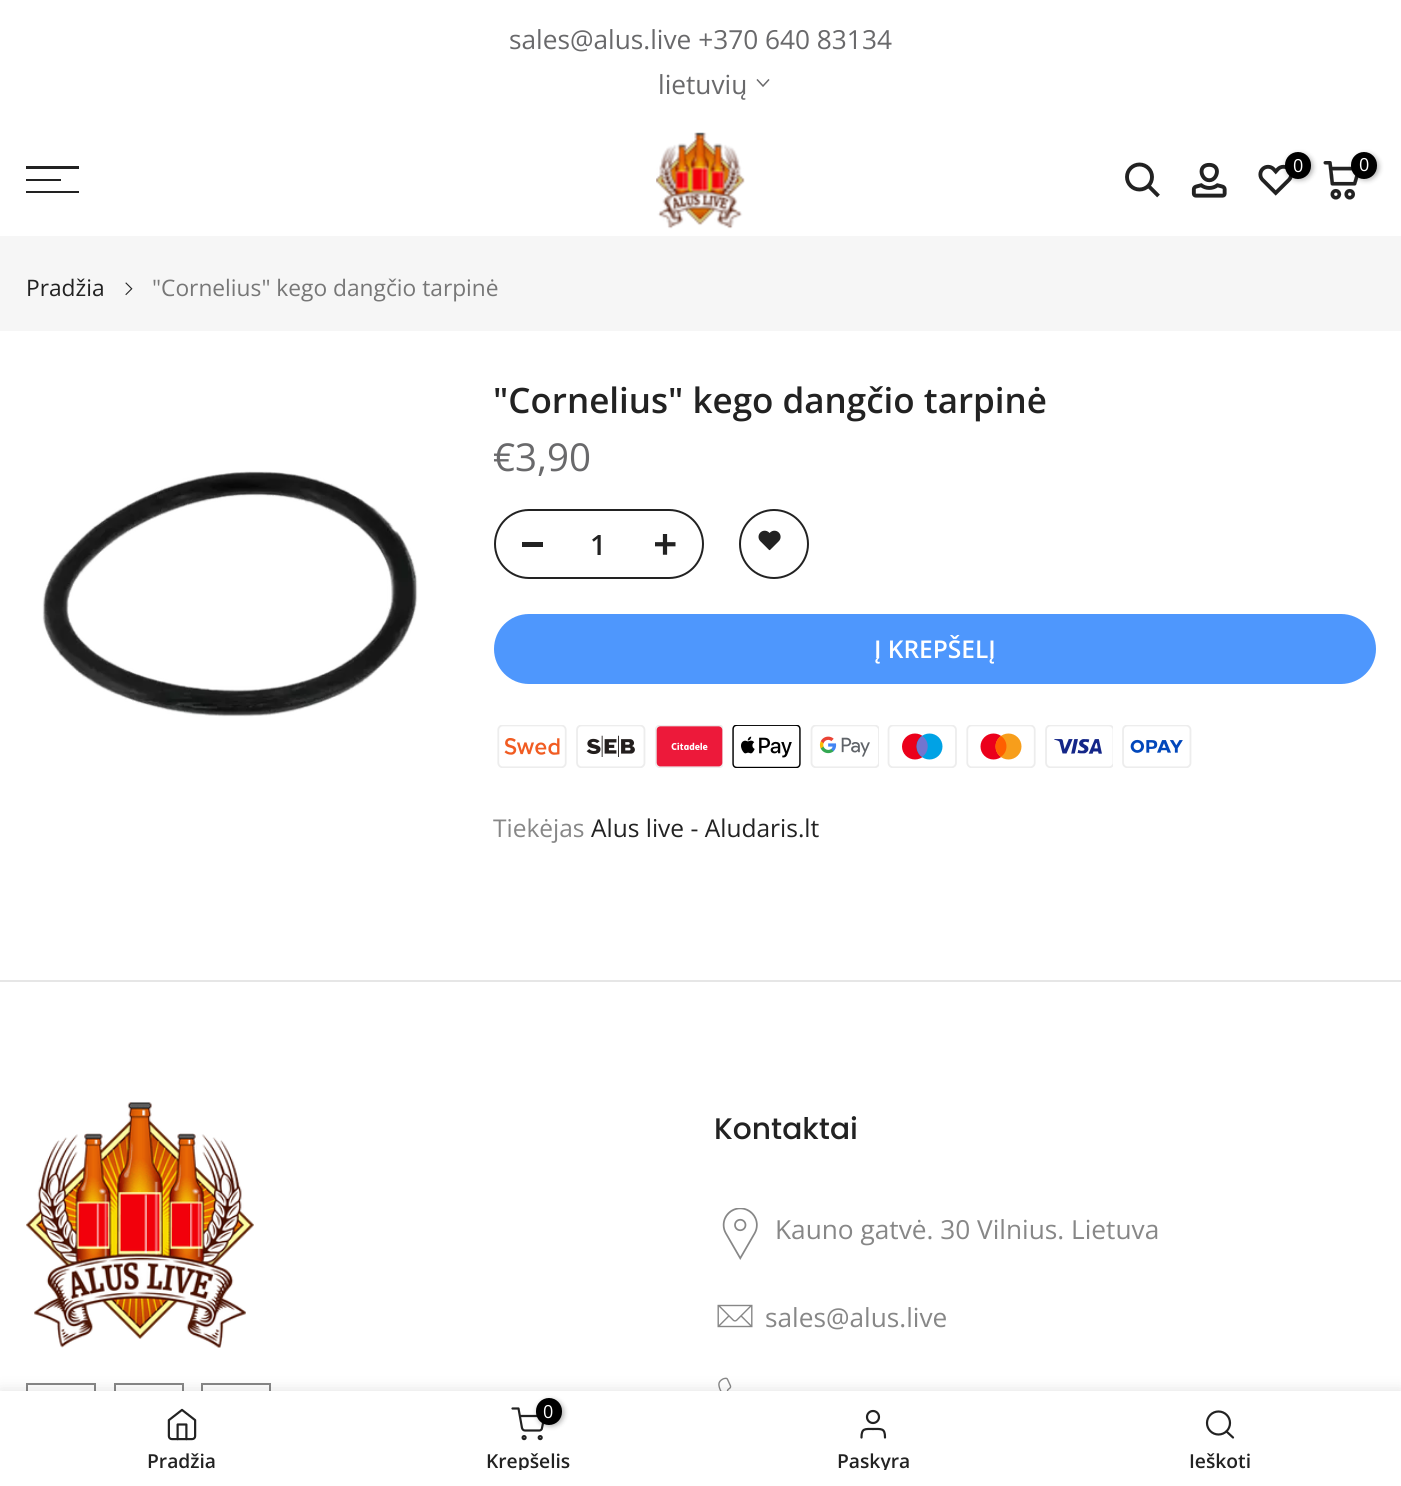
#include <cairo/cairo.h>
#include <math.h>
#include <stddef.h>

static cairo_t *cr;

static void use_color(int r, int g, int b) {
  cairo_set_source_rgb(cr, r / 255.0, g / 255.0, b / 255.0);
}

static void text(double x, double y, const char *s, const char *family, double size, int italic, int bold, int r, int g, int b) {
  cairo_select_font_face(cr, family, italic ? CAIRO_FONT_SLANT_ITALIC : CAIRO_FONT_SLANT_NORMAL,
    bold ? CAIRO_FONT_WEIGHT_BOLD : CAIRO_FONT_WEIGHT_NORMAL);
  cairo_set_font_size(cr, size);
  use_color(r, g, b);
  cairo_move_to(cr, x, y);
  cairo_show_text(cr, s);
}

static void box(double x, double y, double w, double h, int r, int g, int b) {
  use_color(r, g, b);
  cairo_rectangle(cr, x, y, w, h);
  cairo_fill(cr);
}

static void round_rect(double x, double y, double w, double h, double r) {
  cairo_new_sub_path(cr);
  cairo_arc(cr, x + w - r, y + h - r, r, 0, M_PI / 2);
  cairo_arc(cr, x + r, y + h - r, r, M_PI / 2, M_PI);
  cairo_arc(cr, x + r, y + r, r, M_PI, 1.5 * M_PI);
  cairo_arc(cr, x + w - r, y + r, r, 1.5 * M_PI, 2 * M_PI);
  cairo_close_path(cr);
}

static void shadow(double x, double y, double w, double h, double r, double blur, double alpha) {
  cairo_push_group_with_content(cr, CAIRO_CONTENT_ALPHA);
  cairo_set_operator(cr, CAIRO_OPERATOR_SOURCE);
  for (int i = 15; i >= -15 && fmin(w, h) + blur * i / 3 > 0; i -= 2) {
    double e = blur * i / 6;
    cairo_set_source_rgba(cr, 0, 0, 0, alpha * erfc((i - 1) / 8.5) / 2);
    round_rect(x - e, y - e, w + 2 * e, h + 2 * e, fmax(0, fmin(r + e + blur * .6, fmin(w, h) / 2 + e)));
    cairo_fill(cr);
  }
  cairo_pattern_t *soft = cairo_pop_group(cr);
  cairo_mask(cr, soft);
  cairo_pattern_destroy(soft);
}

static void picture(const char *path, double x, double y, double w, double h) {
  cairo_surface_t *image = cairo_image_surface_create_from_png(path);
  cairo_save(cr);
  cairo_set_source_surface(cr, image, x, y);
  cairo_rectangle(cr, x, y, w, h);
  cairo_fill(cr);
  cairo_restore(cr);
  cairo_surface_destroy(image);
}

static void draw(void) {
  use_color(255, 255, 255);
  cairo_paint(cr);
  cairo_new_path(cr);
  cairo_move_to(cr, 768.5, 80);
  cairo_line_to(cr, 763, 86);
  cairo_line_to(cr, 757.5, 80);
  use_color(105, 105, 107);
  cairo_set_line_width(cr, 1.5);
  cairo_set_line_cap(cr, CAIRO_LINE_CAP_SQUARE);
  cairo_stroke(cr);
  box(26, 166, 53, 3, 34, 34, 34);
  box(26, 179, 35, 2, 34, 34, 34);
  box(26, 191, 53, 2, 34, 34, 34);
  picture("img_01.png", 656, 132, 89, 97);
  cairo_arc(cr, 1139.5, 177, 12.5, 0, 2 * M_PI);
  cairo_set_line_width(cr, 3.9);
  cairo_set_line_cap(cr, CAIRO_LINE_CAP_BUTT);
  cairo_stroke(cr);
  cairo_new_path(cr);
  cairo_move_to(cr, 1148.5, 186);
  cairo_line_to(cr, 1158.5, 196);
  cairo_stroke(cr);
  picture("img_02.png", 1191, 162, 36, 36);
  picture("img_03.png", 1258, 164, 35, 32);
  use_color(0, 0, 0);
  shadow(1286, 154, 27, 26, 13, 2.5, 0.3);
  use_color(0, 0, 0);
  round_rect(1285, 152, 26, 27, 13);
  cairo_fill(cr);
  picture("img_04.png", 1323, 161, 36, 39);
  use_color(0, 0, 0);
  shadow(1353, 154, 26, 26, 13, 2.5, 0.3);
  use_color(0, 0, 0);
  round_rect(1351, 152, 26, 27, 13);
  cairo_fill(cr);
  box(0, 236, 1401, 95, 246, 246, 246);
  picture("img_05.png", 125, 282, 8, 14);
  picture("img_06.png", 42, 471, 376, 246);
  round_rect(495, 510, 208, 68, 34);
  use_color(34, 34, 34);
  cairo_set_line_width(cr, 2);
  cairo_stroke(cr);
  box(522, 542, 21, 5, 34, 34, 34);
  picture("img_07.png", 655, 534, 21, 21);
  cairo_arc(cr, 774, 544, 34, 0, 2 * M_PI);
  cairo_stroke(cr);
  picture("img_08.png", 758, 530, 23, 21);
  use_color(78, 151, 253);
  round_rect(494, 614, 882, 70, 35);
  cairo_fill(cr);
  picture("img_09.png", 497, 725, 70, 43);
  picture("img_10.png", 576, 725, 70, 43);
  picture("img_11.png", 655, 725, 68, 43);
  picture("img_12.png", 732, 725, 69, 43);
  picture("img_13.png", 810, 725, 69, 43);
  picture("img_14.png", 887, 725, 70, 43);
  picture("img_15.png", 966, 725, 70, 43);
  picture("img_16.png", 1045, 725, 68, 43);
  picture("img_17.png", 1122, 725, 70, 43);
  box(0, 980, 1401, 2, 230, 230, 230);
  picture("img_18.png", 26, 1102, 228, 246);
  cairo_rectangle(cr, 27, 1384, 68, 68);
  use_color(135, 135, 135);
  cairo_stroke(cr);
  cairo_rectangle(cr, 115, 1384, 68, 68);
  cairo_stroke(cr);
  cairo_rectangle(cr, 202, 1384, 68, 68);
  cairo_stroke(cr);
  picture("img_19.png", 722, 1208, 36, 52);
  picture("img_20.png", 717, 1304, 36, 24);
  picture("img_21.png", 718, 1377, 14, 14);
  use_color(0, 0, 0);
  shadow(0, 1391, 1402, 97, 0, 8, 0.12);
  box(0, 1391, 1401, 95, 255, 255, 255);
  picture("img_22.png", 167, 1408, 30, 33);
  cairo_new_path(cr);
  cairo_move_to(cr, 512.5, 1408.5);
  cairo_line_to(cr, 518.5, 1408.5);
  cairo_line_to(cr, 522, 1428);
  cairo_curve_to(cr, 522.5, 1429.5, 523.5, 1430.5, 525, 1430.5);
  cairo_line_to(cr, 539.5, 1430.5);
  cairo_curve_to(cr, 540.5, 1430.5, 542, 1429.5, 542, 1428);
  cairo_line_to(cr, 544.5, 1416);
  cairo_line_to(cr, 520, 1416);
  use_color(34, 34, 34);
  cairo_set_line_width(cr, 2.2);
  cairo_set_line_cap(cr, CAIRO_LINE_CAP_ROUND);
  cairo_set_line_join(cr, CAIRO_LINE_JOIN_ROUND);
  cairo_stroke(cr);
  use_color(0, 0, 0);
  shadow(537, 1400, 27, 26, 13, 2.5, 0.3);
  use_color(0, 0, 0);
  round_rect(536, 1398, 26, 27, 13);
  cairo_fill(cr);
  cairo_arc(cr, 524.1, 1437.6, 1.5, 0, 2 * M_PI);
  use_color(34, 34, 34);
  cairo_set_line_cap(cr, CAIRO_LINE_CAP_BUTT);
  cairo_set_line_join(cr, CAIRO_LINE_JOIN_MITER);
  cairo_stroke(cr);
  cairo_arc(cr, 540.2, 1437.6, 1.5, 0, 2 * M_PI);
  cairo_stroke(cr);
  cairo_arc(cr, 873, 1417, 6, 0, 2 * M_PI);
  cairo_stroke(cr);
  cairo_new_path(cr);
  cairo_move_to(cr, 885, 1437.5);
  cairo_curve_to(cr, 885, 1428, 881.5, 1429, 873, 1429);
  cairo_curve_to(cr, 865, 1429, 861.5, 1428, 861.5, 1437.5);
  cairo_set_line_cap(cr, CAIRO_LINE_CAP_ROUND);
  cairo_set_line_join(cr, CAIRO_LINE_JOIN_ROUND);
  cairo_stroke(cr);
  cairo_arc(cr, 1218.5, 1423, 11.5, 0, 2 * M_PI);
  cairo_set_line_cap(cr, CAIRO_LINE_CAP_BUTT);
  cairo_set_line_join(cr, CAIRO_LINE_JOIN_MITER);
  cairo_stroke(cr);
  cairo_new_path(cr);
  cairo_move_to(cr, 1233, 1437.5);
  cairo_line_to(cr, 1226.5, 1431.5);
  cairo_set_line_cap(cr, CAIRO_LINE_CAP_ROUND);
  cairo_set_line_join(cr, CAIRO_LINE_JOIN_ROUND);
  cairo_stroke(cr);
  text(509, 49, "sales@alus.live +370 640 83134", "Open Sans", 26.25, 0, 0, 105, 105, 107);
  text(658, 94, "lietuvių", "Open Sans", 26.25, 0, 0, 105, 105, 107);
  text(1293, 172, "0", "Open Sans", 18, 0, 0, 255, 255, 255);
  text(1359, 171, "0", "Open Sans", 18, 0, 0, 255, 255, 255);
  text(26, 296, "Pradžia", "Open Sans", 22.75, 0, 0, 34, 34, 34);
  text(152, 296, "\"Cornelius\" kego dangčio tarpinė", "Open Sans", 22.75, 0, 0, 119, 119, 119);
  text(493, 413, "\"Cornelius\" kego dangčio tarpinė", "Open Sans SemiBold", 35, 0, 0, 34, 34, 34);
  text(493, 471, "€3,90", "Open Sans", 38.5, 0, 0, 105, 105, 107);
  text(590, 555, "1", "Open Sans SemiBold", 28, 0, 0, 34, 34, 34);
  text(874, 658, "Į KREPŠELĮ", "Open Sans SemiBold", 24.5, 0, 0, 255, 255, 255);
  text(493, 837, "Tiekėjas", "Open Sans", 24.5, 0, 0, 135, 135, 135);
  text(591, 837, "Alus live - Aludaris.lt", "Open Sans", 24.5, 0, 0, 34, 34, 34);
  text(714, 1139, "Kontaktai", "Poppins Medium", 29.75, 0, 0, 34, 34, 34);
  text(775, 1239, "Kauno gatvė. 30 Vilnius. Lietuva", "Open Sans", 26.25, 0, 0, 135, 135, 135);
  text(765, 1327, "sales@alus.live", "Open Sans", 26.25, 0, 0, 135, 135, 135);
  text(147, 1468, "Pradžia", "Open Sans SemiBold", 19.25, 0, 0, 34, 34, 34);
  text(543, 1418, "0", "Open Sans", 18, 0, 0, 255, 255, 255);
  cairo_save(cr);
  cairo_rectangle(cr, 373, 1451, 311, 19);
  cairo_clip(cr);
  text(486, 1468, "Krepšelis", "Open Sans SemiBold", 19.25, 0, 0, 34, 34, 34);
  cairo_restore(cr);
  cairo_save(cr);
  cairo_rectangle(cr, 719, 1451, 310, 19);
  cairo_clip(cr);
  text(837, 1468, "Paskyra", "Open Sans SemiBold", 19.25, 0, 0, 34, 34, 34);
  cairo_restore(cr);
  text(1189, 1468, "Ieškoti", "Open Sans SemiBold", 19.25, 0, 0, 34, 34, 34);
}

int main(void) {
  cairo_surface_t *surface = cairo_image_surface_create(CAIRO_FORMAT_RGB24, 1401, 1486);
  cr = cairo_create(surface);
  cairo_font_options_t *options = cairo_font_options_create();
  cairo_font_options_set_hint_metrics(options, CAIRO_HINT_METRICS_OFF);
  cairo_font_options_set_hint_style(options, CAIRO_HINT_STYLE_NONE);
  cairo_set_font_options(cr, options);
  cairo_set_miter_limit(cr, 4);
  draw();
  cairo_surface_write_to_png(surface, "out.png");
  cairo_font_options_destroy(options);
  cairo_destroy(cr);
  cairo_surface_destroy(surface);
  return 0;
}
